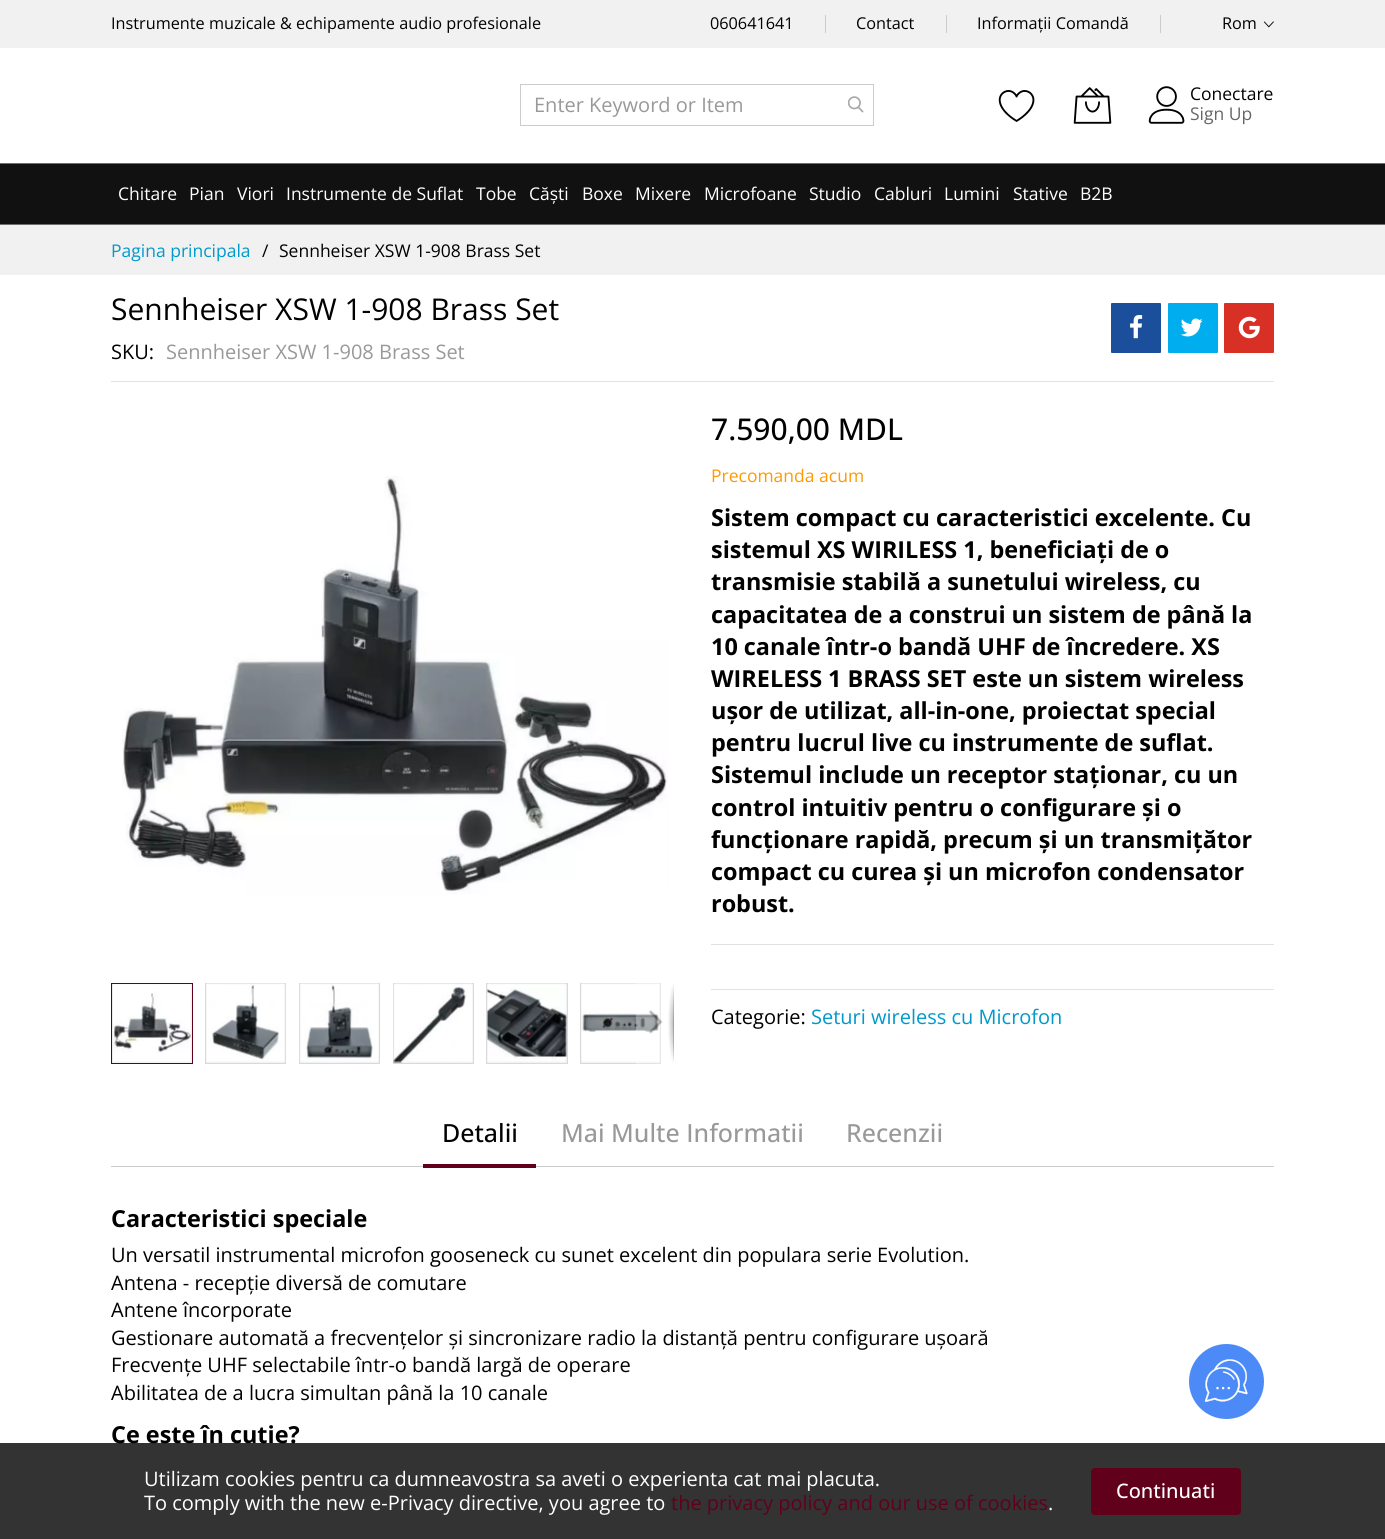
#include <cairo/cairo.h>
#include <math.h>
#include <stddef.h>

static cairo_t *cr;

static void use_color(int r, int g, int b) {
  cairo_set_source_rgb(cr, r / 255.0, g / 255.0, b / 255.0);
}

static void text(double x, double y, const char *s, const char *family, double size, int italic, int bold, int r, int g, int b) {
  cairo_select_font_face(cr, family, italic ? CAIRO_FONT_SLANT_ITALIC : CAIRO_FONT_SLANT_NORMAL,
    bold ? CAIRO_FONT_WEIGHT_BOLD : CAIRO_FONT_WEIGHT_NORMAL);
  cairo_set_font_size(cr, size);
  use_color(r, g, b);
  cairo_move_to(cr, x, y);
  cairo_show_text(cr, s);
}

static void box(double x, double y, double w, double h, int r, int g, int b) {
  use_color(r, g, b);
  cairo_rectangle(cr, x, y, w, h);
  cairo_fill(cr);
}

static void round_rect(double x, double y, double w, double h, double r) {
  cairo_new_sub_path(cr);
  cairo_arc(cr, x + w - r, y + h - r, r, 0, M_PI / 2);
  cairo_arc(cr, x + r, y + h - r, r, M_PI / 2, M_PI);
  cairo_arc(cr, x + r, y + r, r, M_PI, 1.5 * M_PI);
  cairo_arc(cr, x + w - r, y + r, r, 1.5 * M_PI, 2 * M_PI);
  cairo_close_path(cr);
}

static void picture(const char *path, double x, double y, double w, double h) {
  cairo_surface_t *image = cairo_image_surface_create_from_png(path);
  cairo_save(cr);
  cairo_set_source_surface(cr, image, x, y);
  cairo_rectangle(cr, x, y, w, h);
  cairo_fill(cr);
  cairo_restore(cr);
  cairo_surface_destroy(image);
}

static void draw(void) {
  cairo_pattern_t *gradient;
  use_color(255, 255, 255);
  cairo_paint(cr);
  box(0, 0, 1385, 48, 241, 241, 241);
  box(825, 15, 1, 18, 204, 204, 204);
  box(946, 15, 1, 18, 204, 204, 204);
  box(1160, 15, 1, 18, 204, 204, 204);
  picture("img_01.png", 1263, 21, 11, 7);
  cairo_rectangle(cr, 520.5, 84.5, 353, 41);
  cairo_set_line_width(cr, 1);
  cairo_stroke(cr);
  picture("img_02.png", 848, 96, 16, 17);
  picture("img_03.png", 998, 90, 37, 32);
  picture("img_04.png", 1073, 87, 39, 37);
  picture("img_05.png", 1148, 86, 37, 38);
  box(0, 164, 1385, 60, 17, 17, 17);
  box(0, 163, 1385, 1, 111, 111, 111);
  box(0, 224, 1385, 1, 111, 111, 111);
  box(0, 225, 1385, 50, 241, 241, 241);
  box(111, 381, 1163, 1, 225, 225, 225);
  use_color(27, 78, 155);
  round_rect(1111, 303, 50, 50, 1);
  cairo_fill(cr);
  picture("img_06.png", 1130, 315, 13, 24);
  use_color(0, 174, 239);
  round_rect(1168, 303, 50, 50, 1);
  cairo_fill(cr);
  picture("img_07.png", 1180, 318, 23, 19);
  use_color(217, 48, 37);
  round_rect(1224, 303, 50, 50, 1);
  cairo_fill(cr);
  picture("img_08.png", 1238, 316, 22, 23);
  picture("img_09.png", 122, 476, 546, 419);
  box(112, 984, 80, 79, 235, 235, 235);
  picture("img_15.png", 113, 984, 79, 79);
  cairo_rectangle(cr, 111.5, 983.5, 81, 80);
  use_color(96, 0, 27);
  cairo_stroke(cr);
  use_color(235, 235, 235);
  cairo_rectangle(cr, 205.5, 983.5, 80, 80);
  cairo_fill_preserve(cr);
  use_color(217, 217, 217);
  cairo_stroke(cr);
  picture("img_10.png", 206, 983, 80, 80);
  use_color(235, 235, 235);
  cairo_rectangle(cr, 299.5, 983.5, 80, 80);
  cairo_fill_preserve(cr);
  use_color(217, 217, 217);
  cairo_stroke(cr);
  picture("img_11.png", 299, 983, 80, 80);
  use_color(235, 235, 235);
  cairo_rectangle(cr, 393.5, 983.5, 80, 80);
  cairo_fill_preserve(cr);
  use_color(217, 217, 217);
  cairo_stroke(cr);
  picture("img_12.png", 393, 983, 80, 80);
  use_color(235, 235, 235);
  cairo_rectangle(cr, 486.5, 983.5, 81, 80);
  cairo_fill_preserve(cr);
  use_color(217, 217, 217);
  cairo_stroke(cr);
  picture("img_13.png", 487, 983, 80, 80);
  use_color(235, 235, 235);
  cairo_rectangle(cr, 580.5, 983.5, 80, 80);
  cairo_fill_preserve(cr);
  use_color(217, 217, 217);
  cairo_stroke(cr);
  picture("img_14.png", 581, 983, 80, 80);
  gradient = cairo_pattern_create_radial(0, 0, 0, 0, 0, 1);
  cairo_pattern_set_matrix(gradient, &(cairo_matrix_t){1.0 / 6.2, 0, 0, 1.0 / 41, -1.0 * 674 / 6.2, -1.0 * 1023 / 41});
  cairo_pattern_add_color_stop_rgba(gradient, 0, 0.6, 0.6, 0.6, 1);
  cairo_pattern_add_color_stop_rgba(gradient, 1, 1, 1, 1, 1);
  cairo_set_source(cr, gradient);
  cairo_pattern_destroy(gradient);
  cairo_rectangle(cr, 668, 983, 6, 81);
  cairo_fill(cr);
  gradient = cairo_pattern_create_linear(673, 983, 673, 1064);
  cairo_pattern_add_color_stop_rgba(gradient, 0, 0, 0, 0, 0);
  cairo_pattern_add_color_stop_rgba(gradient, 0.25, 0, 0, 0, 0.2);
  cairo_pattern_add_color_stop_rgba(gradient, 0.75, 0, 0, 0, 0.3);
  cairo_pattern_add_color_stop_rgba(gradient, 1, 0, 0, 0, 0);
  cairo_set_source(cr, gradient);
  cairo_pattern_destroy(gradient);
  cairo_rectangle(cr, 673, 983, 1, 81);
  cairo_fill(cr);
  cairo_set_source_rgba(cr, 1, 1, 1, 0.3);
  cairo_rectangle(cr, 636, 983, 38, 81);
  cairo_fill(cr);
  picture("img_16.png", 648, 1010, 15, 24);
  box(711, 944, 563, 1, 225, 225, 225);
  box(711, 989, 563, 1, 225, 225, 225);
  box(111, 1166, 1163, 1, 204, 204, 204);
  box(423, 1164, 113, 4, 96, 0, 27);
  use_color(76, 139, 247);
  cairo_arc(cr, 1226.5, 1381.5, 37.5, 0, 2 * M_PI);
  cairo_fill(cr);
  picture("img_17.png", 1204, 1359, 44, 43);
  text(111, 29, "Instrumente muzicale & echipamente audio profesionale", "Open Sans", 16.25, 0, 0, 0, 0, 0);
  text(710, 29, "060641641", "Open Sans", 16.25, 0, 0, 0, 0, 0);
  text(856, 29, "Contact", "Open Sans", 16.25, 0, 0, 0, 0, 0);
  text(977, 29, "Informații Comandă", "Open Sans", 16.25, 0, 0, 0, 0, 0);
  text(1222, 29, "Rom", "Open Sans", 16.25, 0, 0, 0, 0, 0);
  text(534, 112, "Enter Keyword or Item", "Open Sans", 20, 0, 0, 153, 153, 153);
  text(1190, 100, "Conectare", "Open Sans", 17.5, 0, 0, 0, 0, 0);
  text(1190, 120, "Sign Up", "Open Sans", 17.5, 0, 0, 102, 102, 102);
  text(118, 200, "Chitare", "Open Sans", 17.5, 0, 0, 255, 255, 255);
  text(189, 200, "Pian", "Open Sans", 17.5, 0, 0, 255, 255, 255);
  text(237, 200, "Viori", "Open Sans", 17.5, 0, 0, 255, 255, 255);
  text(286, 200, "Instrumente de Suflat", "Open Sans", 17.5, 0, 0, 255, 255, 255);
  text(476, 200, "Tobe", "Open Sans", 17.5, 0, 0, 255, 255, 255);
  text(529, 200, "Căști", "Open Sans", 17.5, 0, 0, 255, 255, 255);
  text(582, 200, "Boxe", "Open Sans", 17.5, 0, 0, 255, 255, 255);
  text(635, 200, "Mixere", "Open Sans", 17.5, 0, 0, 255, 255, 255);
  text(704, 200, "Microfoane", "Open Sans", 17.5, 0, 0, 255, 255, 255);
  text(809, 200, "Studio", "Open Sans", 17.5, 0, 0, 255, 255, 255);
  text(874, 200, "Cabluri", "Open Sans", 17.5, 0, 0, 255, 255, 255);
  text(944, 200, "Lumini", "Open Sans", 17.5, 0, 0, 255, 255, 255);
  text(1013, 200, "Stative", "Open Sans", 17.5, 0, 0, 255, 255, 255);
  text(1080, 200, "B2B", "Open Sans", 17.5, 0, 0, 255, 255, 255);
  text(111, 257, "Pagina principala", "Open Sans", 17.5, 0, 0, 0, 153, 204);
  text(262, 257, "/", "Open Sans", 17.5, 0, 0, 0, 0, 0);
  text(279, 257, "Sennheiser XSW 1-908 Brass Set", "Open Sans", 17.5, 0, 0, 0, 0, 0);
  text(111, 320, "Sennheiser XSW 1-908 Brass Set", "Open Sans", 30, 0, 0, 0, 0, 0);
  text(111, 359, "SKU:", "Open Sans", 20, 0, 0, 0, 0, 0);
  text(166, 359, "Sennheiser XSW 1-908 Brass Set", "Open Sans", 20, 0, 0, 153, 153, 153);
  text(711, 440, "7.590,00 MDL", "Open Sans Medium", 30, 0, 0, 0, 0, 0);
  text(711, 482, "Precomanda acum", "Open Sans", 17.5, 0, 0, 255, 153, 0);
  text(711, 526, "Sistem compact cu caracteristici excelente. Cu", "Open Sans", 23.4, 0, 1, 0, 0, 0);
  text(711, 558, "sistemul XS WIRILESS 1, beneficiați de o", "Open Sans", 23.4, 0, 1, 0, 0, 0);
  text(711, 590, "transmisie stabilă a sunetului wireless, cu", "Open Sans", 23.4, 0, 1, 0, 0, 0);
  text(711, 623, "capacitatea de a construi un sistem de până la", "Open Sans", 23.4, 0, 1, 0, 0, 0);
  text(711, 655, "10 canale într-o bandă UHF de încredere. XS", "Open Sans", 23.4, 0, 1, 0, 0, 0);
  text(711, 687, "WIRELESS 1 BRASS SET este un sistem wireless", "Open Sans", 23.4, 0, 1, 0, 0, 0);
  text(711, 719, "ușor de utilizat, all-in-one, proiectat special", "Open Sans", 23.4, 0, 1, 0, 0, 0);
  text(711, 751, "pentru lucrul live cu instrumente de suflat.", "Open Sans", 23.4, 0, 1, 0, 0, 0);
  text(711, 783, "Sistemul include un receptor staționar, cu un", "Open Sans", 23.4, 0, 1, 0, 0, 0);
  text(711, 816, "control intuitiv pentru o configurare și o", "Open Sans", 23.4, 0, 1, 0, 0, 0);
  text(711, 848, "funcționare rapidă, precum și un transmițător", "Open Sans", 23.4, 0, 1, 0, 0, 0);
  text(711, 880, "compact cu curea și un microfon condensator", "Open Sans", 23.4, 0, 1, 0, 0, 0);
  text(711, 912, "robust.", "Open Sans", 23.4, 0, 1, 0, 0, 0);
  text(711, 1024, "Categorie:", "Open Sans", 20, 0, 0, 0, 0, 0);
  text(811, 1024, "Seturi wireless cu Microfon", "Open Sans", 20, 0, 0, 0, 153, 204);
  text(442, 1142, "Detalii", "Open Sans Medium", 25, 0, 0, 0, 0, 0);
  text(561, 1142, "Mai Multe Informatii", "Open Sans Medium", 25, 0, 0, 153, 153, 153);
  text(846, 1142, "Recenzii", "Open Sans Medium", 25, 0, 0, 153, 153, 153);
  text(111, 1227, "Caracteristici speciale", "Open Sans", 23.4, 0, 1, 0, 0, 0);
  text(111, 1262, "Un versatil instrumental microfon gooseneck cu sunet excelent din populara serie Evolution.", "Open Sans", 20, 0, 0, 0, 0, 0);
  text(111, 1290, "Antena - recepție diversă de comutare", "Open Sans", 20, 0, 0, 0, 0, 0);
  text(111, 1317, "Antene încorporate", "Open Sans", 20, 0, 0, 0, 0, 0);
  text(111, 1345, "Gestionare automată a frecvențelor și sincronizare radio la distanță pentru configurare ușoară", "Open Sans", 20, 0, 0, 0, 0, 0);
  text(111, 1372, "Frecvențe UHF selectabile într-o bandă largă de operare", "Open Sans", 20, 0, 0, 0, 0, 0);
  text(111, 1400, "Abilitatea de a lucra simultan până la 10 canale", "Open Sans", 20, 0, 0, 0, 0, 0);
  text(111, 1443, "Ce este în cutie?", "Open Sans", 23.4, 0, 1, 0, 0, 0);
  cairo_set_source_rgba(cr, 0, 0, 0, 0.8);
  cairo_rectangle(cr, 0, 1443, 1385, 96);
  cairo_fill(cr);
  text(144, 1486, "Utilizam cookies pentru ca dumneavostra sa aveti o experienta cat mai placuta.", "Open Sans", 20, 0, 0, 255, 255, 255);
  text(144, 1510, "To comply with the new e-Privacy directive, you agree to", "Open Sans", 20, 0, 0, 255, 255, 255);
  text(671, 1510, "the privacy policy and our use of cookies", "Open Sans", 20, 0, 0, 96, 0, 27);
  text(1048, 1510, ".", "Open Sans", 20, 0, 0, 255, 255, 255);
  use_color(96, 0, 27);
  round_rect(1091.5, 1468.5, 149, 46, 3.5);
  cairo_fill_preserve(cr);
  cairo_stroke(cr);
  text(1116, 1498, "Continuati", "Open Sans Medium", 20, 0, 0, 255, 255, 255);
}

int main(void) {
  cairo_surface_t *surface = cairo_image_surface_create(CAIRO_FORMAT_RGB24, 1385, 1539);
  cr = cairo_create(surface);
  cairo_font_options_t *options = cairo_font_options_create();
  cairo_font_options_set_hint_metrics(options, CAIRO_HINT_METRICS_OFF);
  cairo_font_options_set_hint_style(options, CAIRO_HINT_STYLE_NONE);
  cairo_set_font_options(cr, options);
  cairo_set_miter_limit(cr, 4);
  draw();
  cairo_surface_write_to_png(surface, "out.png");
  cairo_font_options_destroy(options);
  cairo_destroy(cr);
  cairo_surface_destroy(surface);
  return 0;
}
